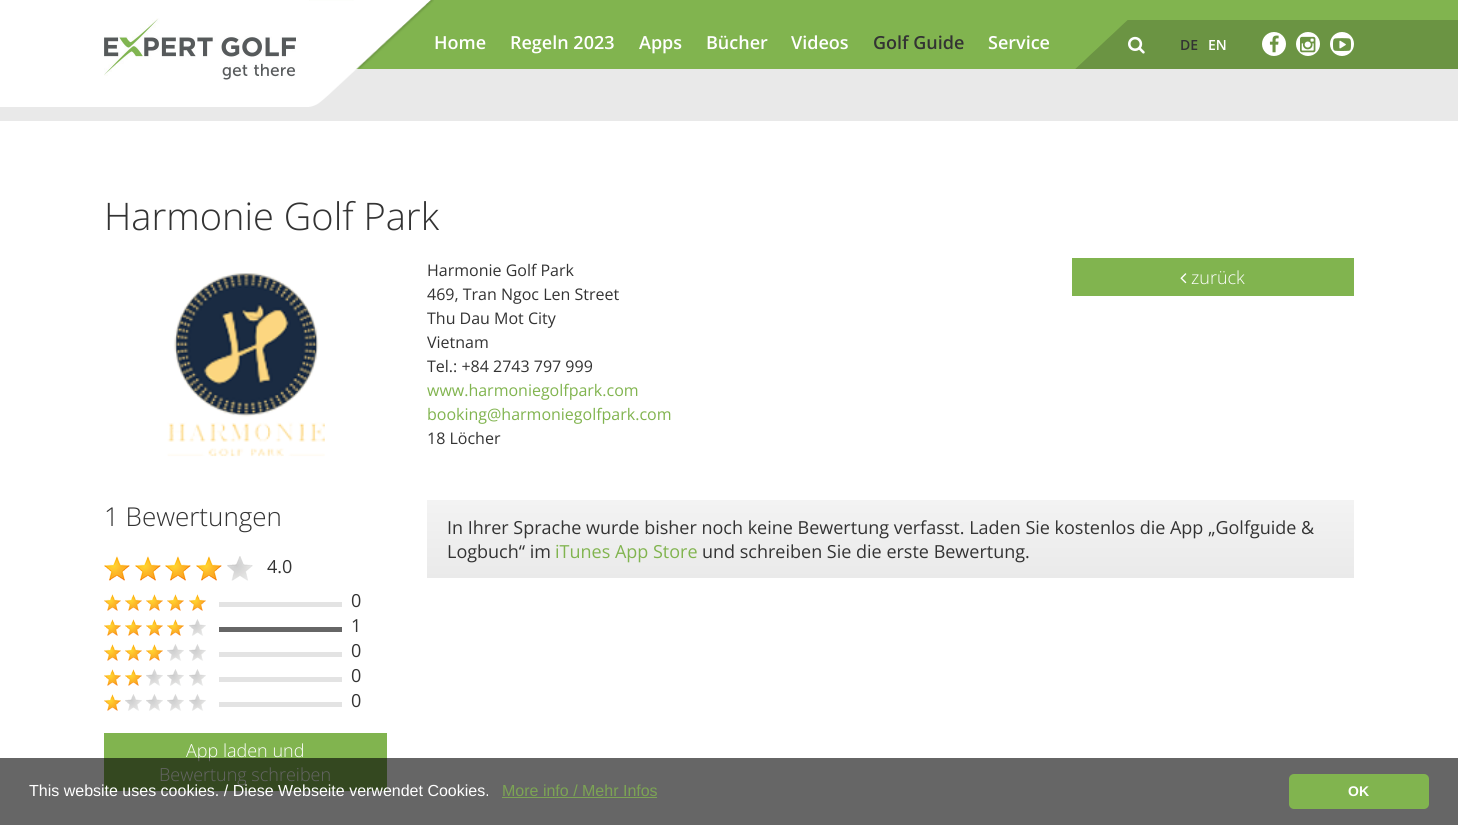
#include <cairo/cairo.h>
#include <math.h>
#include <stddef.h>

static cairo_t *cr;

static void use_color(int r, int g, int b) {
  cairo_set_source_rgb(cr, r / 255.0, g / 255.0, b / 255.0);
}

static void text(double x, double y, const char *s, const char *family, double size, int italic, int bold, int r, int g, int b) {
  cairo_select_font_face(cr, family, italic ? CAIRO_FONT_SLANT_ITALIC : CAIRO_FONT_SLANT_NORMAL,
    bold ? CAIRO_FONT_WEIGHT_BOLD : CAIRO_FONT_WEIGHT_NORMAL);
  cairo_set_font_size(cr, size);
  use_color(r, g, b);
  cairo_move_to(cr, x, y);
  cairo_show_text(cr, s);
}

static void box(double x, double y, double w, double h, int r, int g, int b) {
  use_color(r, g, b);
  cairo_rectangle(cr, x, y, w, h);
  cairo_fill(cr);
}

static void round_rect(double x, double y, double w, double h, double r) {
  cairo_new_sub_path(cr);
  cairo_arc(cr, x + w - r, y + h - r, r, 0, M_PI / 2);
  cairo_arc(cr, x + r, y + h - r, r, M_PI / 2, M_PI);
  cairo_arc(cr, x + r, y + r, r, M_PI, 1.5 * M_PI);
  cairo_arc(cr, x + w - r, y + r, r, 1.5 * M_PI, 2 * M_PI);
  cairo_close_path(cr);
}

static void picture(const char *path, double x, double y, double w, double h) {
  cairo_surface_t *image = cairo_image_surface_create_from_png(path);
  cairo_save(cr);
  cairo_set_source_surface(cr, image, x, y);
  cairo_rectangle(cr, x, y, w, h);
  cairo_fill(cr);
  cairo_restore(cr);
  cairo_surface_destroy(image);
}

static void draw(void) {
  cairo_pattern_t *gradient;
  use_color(255, 255, 255);
  cairo_paint(cr);
  box(1394, 0, 64, 20, 129, 180, 79);
  box(309, 0, 1085, 69, 129, 180, 79);
  box(144, 69, 1314, 52, 233, 233, 233);
  picture("img_01.png", 309, 0, 125, 107);
  box(144, 69, 165, 38, 255, 255, 255);
  picture("img_02.png", 104, 18, 192, 62);
  picture("img_03.png", 1075, 20, 53, 49);
  box(1128, 20, 330, 49, 107, 148, 67);
  picture("img_04.png", 1128, 36, 17, 18);
  use_color(255, 255, 255);
  cairo_arc(cr, 1274, 44, 12, 0, 2 * M_PI);
  cairo_fill(cr);
  picture("img_05.png", 1269, 35, 10, 18);
  cairo_arc(cr, 1308, 44, 12, 0, 2 * M_PI);
  cairo_fill(cr);
  picture("img_06.png", 1300, 36, 16, 17);
  cairo_arc(cr, 1342, 44, 12, 0, 2 * M_PI);
  cairo_fill(cr);
  picture("img_07.png", 1333, 38, 18, 13);
  box(0, 107, 144, 14, 233, 233, 233);
  picture("img_08.png", 167, 273, 158, 184);
  box(1072, 258, 282, 38, 129, 180, 79);
  picture("img_09.png", 1180, 273, 7, 11);
  picture("img_10.png", 104, 556, 26, 25);
  picture("img_10.png", 135, 556, 26, 25);
  picture("img_10.png", 165, 556, 26, 25);
  picture("img_10.png", 196, 556, 26, 25);
  picture("img_11.png", 227, 556, 26, 25);
  picture("img_12.png", 104, 594, 17, 17);
  picture("img_12.png", 125, 594, 17, 17);
  picture("img_13.png", 146, 594, 17, 17);
  picture("img_12.png", 167, 594, 17, 17);
  picture("img_12.png", 189, 594, 17, 17);
  box(219, 602, 123, 5, 227, 227, 227);
  picture("img_14.png", 104, 619, 17, 17);
  picture("img_14.png", 125, 619, 17, 17);
  picture("img_15.png", 146, 619, 17, 17);
  picture("img_14.png", 167, 619, 17, 17);
  picture("img_16.png", 189, 619, 17, 17);
  box(219, 627, 123, 5, 102, 102, 102);
  picture("img_14.png", 104, 644, 17, 17);
  picture("img_14.png", 125, 644, 17, 17);
  picture("img_15.png", 146, 644, 17, 17);
  picture("img_16.png", 167, 644, 17, 17);
  picture("img_16.png", 189, 644, 17, 17);
  box(219, 652, 123, 5, 227, 227, 227);
  picture("img_14.png", 104, 669, 17, 17);
  picture("img_14.png", 125, 669, 17, 17);
  picture("img_17.png", 146, 669, 17, 17);
  picture("img_16.png", 167, 669, 17, 17);
  picture("img_16.png", 189, 669, 17, 17);
  box(219, 677, 123, 5, 227, 227, 227);
  picture("img_14.png", 104, 694, 17, 17);
  picture("img_16.png", 125, 694, 17, 17);
  picture("img_17.png", 146, 694, 17, 17);
  picture("img_16.png", 167, 694, 17, 17);
  picture("img_16.png", 189, 694, 17, 17);
  box(219, 702, 123, 5, 227, 227, 227);
  box(104, 733, 283, 58, 129, 180, 79);
  gradient = cairo_pattern_create_linear(891, 500, 891, 578);
  cairo_pattern_add_color_stop_rgba(gradient, 0, 0.953, 0.953, 0.953, 1);
  cairo_pattern_add_color_stop_rgba(gradient, 1, 0.918, 0.918, 0.918, 1);
  cairo_set_source(cr, gradient);
  cairo_pattern_destroy(gradient);
  cairo_rectangle(cr, 427, 500, 927, 78);
  cairo_fill(cr);
  text(434, 49, "Home", "Open Sans SemiBold", 18, 0, 0, 255, 255, 255);
  text(510, 49, "Regeln 2023", "Open Sans SemiBold", 18, 0, 0, 255, 255, 255);
  text(639, 49, "Apps", "Open Sans SemiBold", 18, 0, 0, 255, 255, 255);
  text(706, 49, "Bücher", "Open Sans SemiBold", 18, 0, 0, 255, 255, 255);
  text(791, 49, "Videos", "Open Sans SemiBold", 18, 0, 0, 255, 255, 255);
  text(873, 49, "Golf Guide", "Open Sans SemiBold", 18, 0, 0, 51, 51, 51);
  text(988, 49, "Service", "Open Sans SemiBold", 18, 0, 0, 255, 255, 255);
  text(1180, 50, "DE", "Open Sans SemiBold", 14, 0, 0, 51, 51, 51);
  text(1208, 50, "EN", "Open Sans SemiBold", 14, 0, 0, 255, 255, 255);
  text(104, 230, "Harmonie Golf Park", "Open Sans Light", 38, 0, 0, 51, 51, 51);
  text(427, 276, "Harmonie Golf Park", "Open Sans", 16, 0, 0, 51, 51, 51);
  text(427, 300, "469, Tran Ngoc Len Street", "Open Sans", 16, 0, 0, 51, 51, 51);
  text(427, 324, "Thu Dau Mot City", "Open Sans", 16, 0, 0, 51, 51, 51);
  text(427, 348, "Vietnam", "Open Sans", 16, 0, 0, 51, 51, 51);
  text(427, 372, "Tel.: +84 2743 797 999", "Open Sans", 16, 0, 0, 51, 51, 51);
  text(427, 396, "www.harmoniegolfpark.com", "Open Sans", 16, 0, 0, 129, 180, 79);
  text(427, 420, "booking@harmoniegolfpark.com", "Open Sans", 16, 0, 0, 129, 180, 79);
  text(427, 444, "18 Löcher", "Open Sans", 16, 0, 0, 51, 51, 51);
  text(1191, 284, "zurück", "Open Sans Light", 18, 0, 0, 255, 255, 255);
  text(104, 526, "1 Bewertungen", "Open Sans Light", 26, 0, 0, 51, 51, 51);
  text(267, 573, "4.0", "Open Sans", 18, 0, 0, 51, 51, 51);
  text(351, 607, "0", "Open Sans", 18, 0, 0, 51, 51, 51);
  text(351, 632, "1", "Open Sans", 18, 0, 0, 51, 51, 51);
  text(351, 657, "0", "Open Sans", 18, 0, 0, 51, 51, 51);
  text(351, 682, "0", "Open Sans", 18, 0, 0, 51, 51, 51);
  text(351, 707, "0", "Open Sans", 18, 0, 0, 51, 51, 51);
  text(186, 757, "App laden und", "Open Sans Light", 18, 0, 0, 255, 255, 255);
  text(159, 781, "Bewertung schreiben", "Open Sans Light", 18, 0, 0, 255, 255, 255);
  text(447, 534, "In Ihrer Sprache wurde bisher noch keine Bewertung verfasst. Laden Sie kostenlos die App „Golfguide &", "Open Sans", 18, 0, 0, 51, 51, 51);
  text(447, 558, "Logbuch“ im", "Open Sans", 18, 0, 0, 51, 51, 51);
  text(555, 558, "iTunes App Store", "Open Sans", 18, 0, 0, 129, 180, 79);
  text(702, 558, "und schreiben Sie die erste Bewertung.", "Open Sans", 18, 0, 0, 51, 51, 51);
  cairo_set_source_rgba(cr, 0, 0, 0, 0.6);
  cairo_rectangle(cr, 0, 758, 1458, 67);
  cairo_fill(cr);
  text(29, 796, "This website uses cookies. / Diese Webseite verwendet Cookies.", "Liberation Sans", 16, 0, 0, 255, 255, 255);
  text(502, 796, "More info / Mehr Infos", "Liberation Sans", 16, 0, 0, 124, 164, 84);
  box(502, 797, 155, 1, 124, 164, 84);
  use_color(129, 180, 79);
  round_rect(1289, 774, 140, 35, 5);
  cairo_fill(cr);
  text(1348, 796, "OK", "Liberation Sans", 14, 0, 1, 255, 255, 255);
}

int main(void) {
  cairo_surface_t *surface = cairo_image_surface_create(CAIRO_FORMAT_RGB24, 1458, 825);
  cr = cairo_create(surface);
  cairo_font_options_t *options = cairo_font_options_create();
  cairo_font_options_set_hint_metrics(options, CAIRO_HINT_METRICS_OFF);
  cairo_font_options_set_hint_style(options, CAIRO_HINT_STYLE_NONE);
  cairo_set_font_options(cr, options);
  cairo_set_miter_limit(cr, 4);
  draw();
  cairo_surface_write_to_png(surface, "out.png");
  cairo_font_options_destroy(options);
  cairo_destroy(cr);
  cairo_surface_destroy(surface);
  return 0;
}
